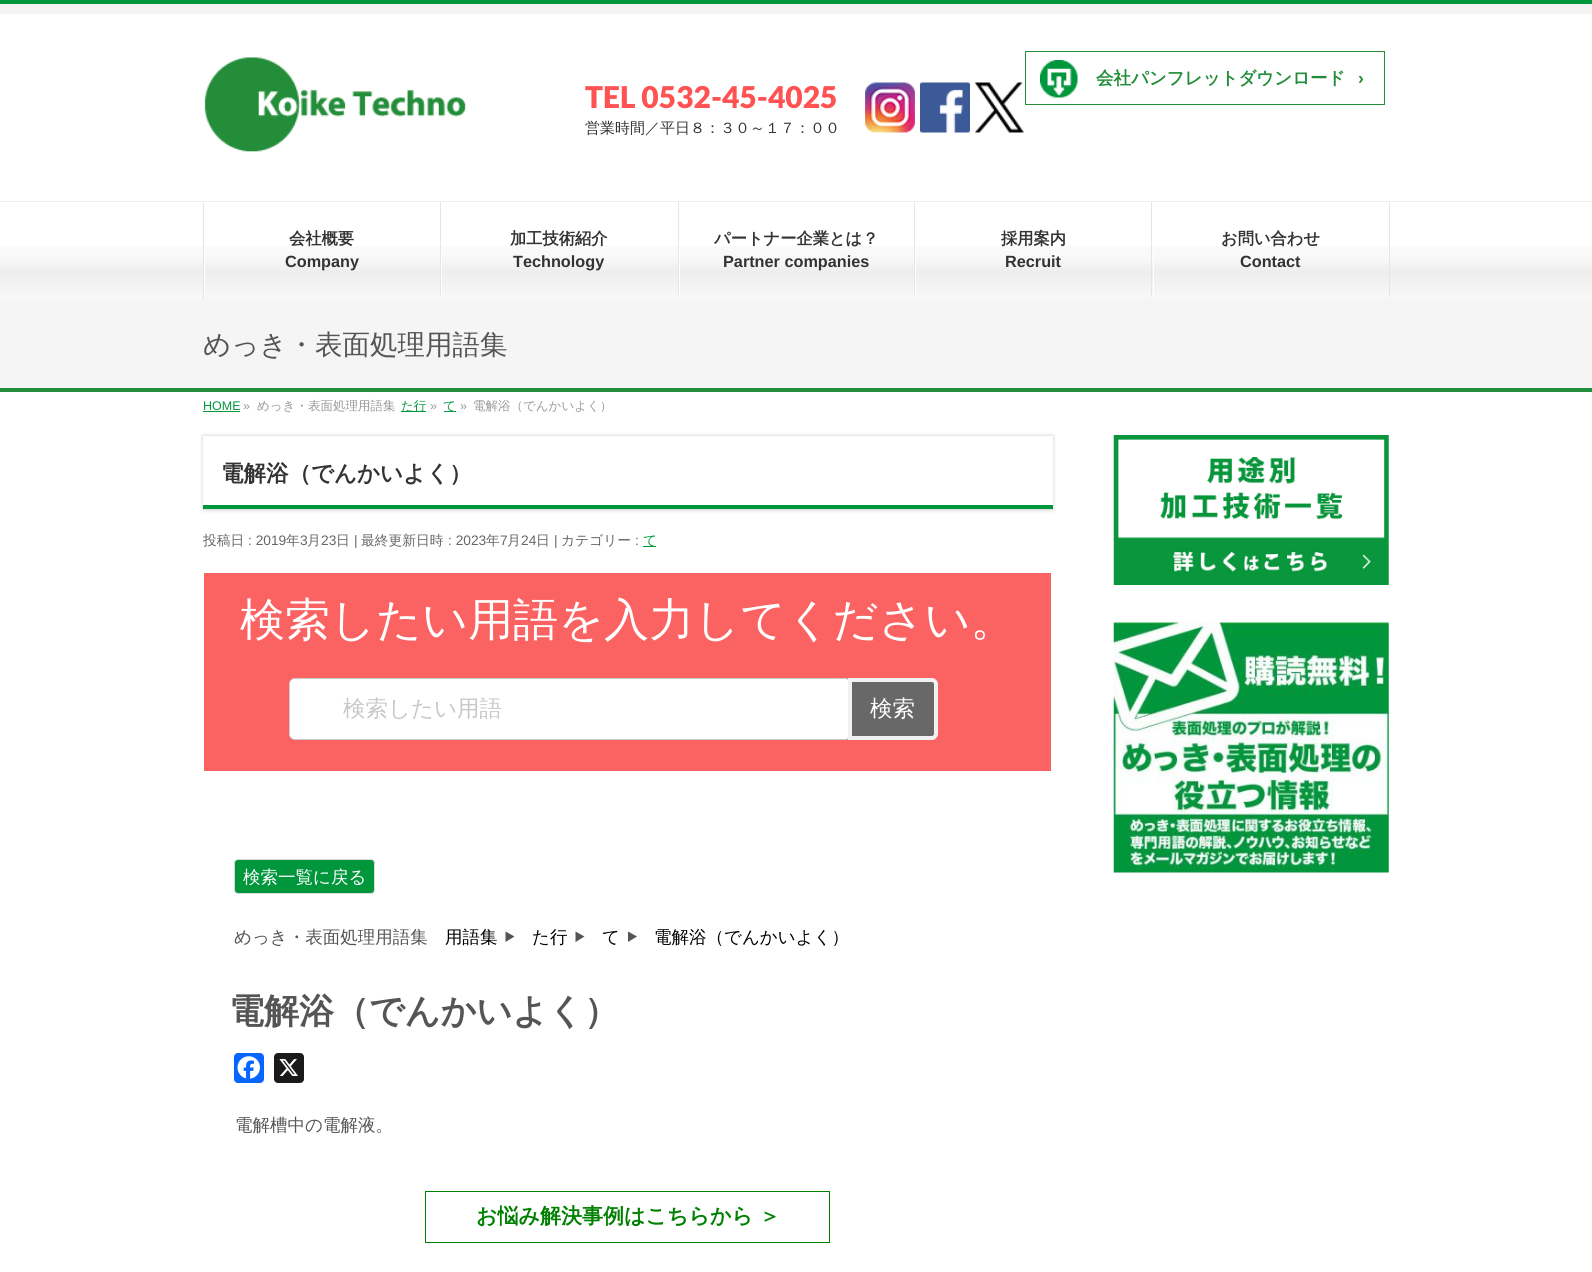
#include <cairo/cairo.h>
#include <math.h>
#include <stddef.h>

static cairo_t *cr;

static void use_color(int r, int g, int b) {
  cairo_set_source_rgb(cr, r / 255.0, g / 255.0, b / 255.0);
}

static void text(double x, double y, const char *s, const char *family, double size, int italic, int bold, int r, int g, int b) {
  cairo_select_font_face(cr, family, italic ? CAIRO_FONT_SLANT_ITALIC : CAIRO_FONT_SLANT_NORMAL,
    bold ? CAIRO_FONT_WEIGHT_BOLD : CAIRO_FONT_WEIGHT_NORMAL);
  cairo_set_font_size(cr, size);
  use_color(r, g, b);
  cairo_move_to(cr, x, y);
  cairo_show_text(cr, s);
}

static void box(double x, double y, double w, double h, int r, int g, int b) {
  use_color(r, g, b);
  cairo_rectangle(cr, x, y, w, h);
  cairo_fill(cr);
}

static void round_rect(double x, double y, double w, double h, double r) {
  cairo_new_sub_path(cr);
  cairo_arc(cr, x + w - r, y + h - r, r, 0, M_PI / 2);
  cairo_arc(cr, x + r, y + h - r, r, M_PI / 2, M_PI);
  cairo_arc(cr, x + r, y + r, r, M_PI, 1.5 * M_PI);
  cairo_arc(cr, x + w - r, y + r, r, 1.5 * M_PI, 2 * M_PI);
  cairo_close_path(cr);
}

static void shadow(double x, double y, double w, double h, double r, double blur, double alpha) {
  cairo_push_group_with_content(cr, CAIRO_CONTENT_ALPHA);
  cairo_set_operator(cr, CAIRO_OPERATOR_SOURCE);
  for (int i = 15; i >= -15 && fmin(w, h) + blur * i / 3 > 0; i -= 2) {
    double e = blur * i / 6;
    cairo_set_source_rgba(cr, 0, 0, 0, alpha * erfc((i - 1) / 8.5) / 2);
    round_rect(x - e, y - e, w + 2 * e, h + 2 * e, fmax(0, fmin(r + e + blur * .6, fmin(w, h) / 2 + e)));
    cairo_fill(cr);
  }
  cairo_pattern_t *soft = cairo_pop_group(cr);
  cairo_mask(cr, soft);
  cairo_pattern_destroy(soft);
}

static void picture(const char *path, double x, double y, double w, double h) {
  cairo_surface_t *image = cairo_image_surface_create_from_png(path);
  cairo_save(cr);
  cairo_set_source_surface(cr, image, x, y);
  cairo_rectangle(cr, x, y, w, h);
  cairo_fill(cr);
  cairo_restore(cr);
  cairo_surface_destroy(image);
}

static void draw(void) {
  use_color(255, 255, 255);
  cairo_paint(cr);
  box(0, 4, 1592, 10, 243, 243, 243);
  box(0, 0, 1592, 4, 0, 150, 60);
  picture("img_01.png", 204, 57, 262, 95);
  cairo_rectangle(cr, 1025.5, 51.5, 359, 53);
  use_color(36, 141, 58);
  cairo_set_line_width(cr, 1);
  cairo_stroke(cr);
  picture("img_02.png", 1040, 60, 38, 38);
  picture("img_03.png", 865, 82, 50, 51);
  picture("img_04.png", 920, 82, 50, 51);
  picture("img_05.png", 975, 82, 49, 51);
  picture("img_06.png", 0, 246, 1592, 53);
  box(0, 201, 1592, 1, 238, 238, 238);
  box(203, 203, 1, 96, 229, 229, 229);
  box(204, 246, 1, 53, 255, 255, 255);
  use_color(229, 229, 229);
  cairo_new_path(cr);
  cairo_move_to(cr, 441, 202);
  cairo_line_to(cr, 441, 299);
  cairo_line_to(cr, 440, 295);
  cairo_line_to(cr, 440, 202);
  cairo_close_path(cr);
  cairo_fill(cr);
  box(441, 246, 1, 53, 255, 255, 255);
  use_color(229, 229, 229);
  cairo_new_path(cr);
  cairo_move_to(cr, 679, 202);
  cairo_line_to(cr, 679, 299);
  cairo_line_to(cr, 678, 295);
  cairo_line_to(cr, 678, 202);
  cairo_close_path(cr);
  cairo_fill(cr);
  box(679, 246, 1, 53, 255, 255, 255);
  use_color(229, 229, 229);
  cairo_new_path(cr);
  cairo_move_to(cr, 915, 202);
  cairo_line_to(cr, 915, 299);
  cairo_line_to(cr, 914, 295);
  cairo_line_to(cr, 914, 202);
  cairo_close_path(cr);
  cairo_fill(cr);
  box(915, 246, 1, 53, 255, 255, 255);
  use_color(229, 229, 229);
  cairo_new_path(cr);
  cairo_move_to(cr, 1152, 202);
  cairo_line_to(cr, 1152, 299);
  cairo_line_to(cr, 1151, 295);
  cairo_line_to(cr, 1151, 202);
  cairo_close_path(cr);
  cairo_fill(cr);
  box(1153, 246, 1, 53, 255, 255, 255);
  use_color(229, 229, 229);
  cairo_new_path(cr);
  cairo_move_to(cr, 1390, 202);
  cairo_line_to(cr, 1390, 299);
  cairo_line_to(cr, 1389, 295);
  cairo_line_to(cr, 1389, 202);
  cairo_close_path(cr);
  cairo_fill(cr);
  box(0, 299, 1592, 89, 245, 245, 245);
  box(0, 388, 1592, 4, 36, 141, 58);
  box(203, 411, 37, 1, 0, 150, 60);
  box(401, 411, 25, 1, 0, 150, 60);
  box(444, 411, 12, 1, 0, 150, 60);
  cairo_save(cr);
  cairo_set_fill_rule(cr, CAIRO_FILL_RULE_EVEN_ODD);
  cairo_new_path(cr);
  cairo_move_to(cr, 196, 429);
  cairo_line_to(cr, 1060, 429);
  cairo_line_to(cr, 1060, 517);
  cairo_line_to(cr, 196, 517);
  cairo_close_path(cr);
  cairo_move_to(cr, 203, 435);
  cairo_line_to(cr, 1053, 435);
  cairo_line_to(cr, 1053, 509);
  cairo_line_to(cr, 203, 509);
  cairo_close_path(cr);
  cairo_clip(cr);
  use_color(0, 0, 0);
  shadow(203, 436, 850, 74, 0, 2, 0.2);
  cairo_restore(cr);
  box(203, 435, 850, 1, 229, 229, 229);
  box(203, 505, 850, 4, 0, 150, 60);
  box(643, 546, 13, 1, 0, 150, 60);
  box(204, 573, 847, 198, 251, 98, 98);
  use_color(255, 255, 255);
  round_rect(289.5, 678.5, 561, 61, 5.5);
  cairo_fill_preserve(cr);
  use_color(204, 204, 204);
  cairo_stroke(cr);
  use_color(104, 104, 104);
  cairo_new_path(cr);
  cairo_move_to(cr, 850, 680);
  cairo_line_to(cr, 932, 680);
  cairo_curve_to(cr, 934, 680, 936, 682, 936, 684);
  cairo_line_to(cr, 936, 734);
  cairo_curve_to(cr, 936, 736, 934, 738, 932, 738);
  cairo_line_to(cr, 850, 738);
  cairo_close_path(cr);
  cairo_fill_preserve(cr);
  use_color(241, 241, 241);
  cairo_set_line_width(cr, 4);
  cairo_stroke(cr);
  use_color(0, 150, 60);
  round_rect(234.5, 859.5, 140, 34, 3.5);
  cairo_fill_preserve(cr);
  use_color(220, 220, 220);
  cairo_set_line_width(cr, 1);
  cairo_stroke(cr);
  use_color(85, 85, 85);
  cairo_new_path(cr);
  cairo_move_to(cr, 505.5, 931.5);
  cairo_line_to(cr, 514.5, 936.5);
  cairo_line_to(cr, 505.5, 942);
  cairo_close_path(cr);
  cairo_fill(cr);
  cairo_new_path(cr);
  cairo_move_to(cr, 575.5, 931.5);
  cairo_line_to(cr, 584.5, 936.5);
  cairo_line_to(cr, 575.5, 942);
  cairo_close_path(cr);
  cairo_fill(cr);
  cairo_new_path(cr);
  cairo_move_to(cr, 628, 931.5);
  cairo_line_to(cr, 637, 936.5);
  cairo_line_to(cr, 628, 942);
  cairo_close_path(cr);
  cairo_fill(cr);
  use_color(8, 102, 255);
  round_rect(234, 1053, 30, 30, 4);
  cairo_fill(cr);
  picture("img_07.png", 237, 1056, 23, 23);
  use_color(26, 26, 26);
  round_rect(274, 1053, 30, 30, 4);
  cairo_fill(cr);
  picture("img_08.png", 279, 1059, 19, 17);
  cairo_rectangle(cr, 425.5, 1191.5, 404, 51);
  use_color(0, 128, 0);
  cairo_stroke(cr);
  picture("img_09.png", 1113, 435, 276, 150);
  picture("img_10.png", 1113, 622, 276, 251);
  text(1096, 84, "会社パンフレットダウンロード", "WenQuanYi Zen Hei", 17.5, 0, 1, 36, 141, 58);
  text(1358, 84, "›", "Liberation Sans", 17.5, 0, 1, 36, 141, 58);
  text(585, 108, "TEL 0532-45-4025", "Lato Black", 30, 0, 0, 255, 82, 83);
  text(585, 133, "営業時間／平日８：３０～１７：００", "WenQuanYi Zen Hei Medium", 15, 0, 0, 51, 51, 51);
  text(289, 244, "会社概要", "WenQuanYi Zen Hei", 16.25, 0, 1, 51, 51, 51);
  text(285, 267, "Company", "Liberation Sans", 16.25, 0, 1, 51, 51, 51);
  text(510, 244, "加工技術紹介", "WenQuanYi Zen Hei", 16.25, 0, 1, 51, 51, 51);
  text(513, 267, "Technology", "Liberation Sans", 16.25, 0, 1, 51, 51, 51);
  text(714, 244, "パートナー企業とは？", "WenQuanYi Zen Hei", 16.25, 0, 1, 51, 51, 51);
  text(723, 267, "Partner companies", "Liberation Sans", 16.25, 0, 1, 51, 51, 51);
  text(1001, 244, "採用案内", "WenQuanYi Zen Hei", 16.25, 0, 1, 51, 51, 51);
  text(1005, 267, "Recruit", "Liberation Sans", 16.25, 0, 1, 51, 51, 51);
  text(1221, 244, "お問い合わせ", "WenQuanYi Zen Hei", 16.25, 0, 1, 51, 51, 51);
  text(1240, 267, "Contact", "Liberation Sans", 16.25, 0, 1, 51, 51, 51);
  text(203, 354, "めっき・表面処理用語集", "WenQuanYi Zen Hei Medium", 27.5, 0, 0, 85, 85, 85);
  text(203, 410, "HOME", "Liberation Sans", 12.5, 0, 0, 0, 150, 60);
  text(243, 410, "»", "Liberation Sans", 12.5, 0, 0, 153, 153, 153);
  text(257, 410, "めっき・表面処理用語集", "WenQuanYi Zen Hei Medium", 12.5, 0, 0, 153, 153, 153);
  text(401, 410, "た行", "WenQuanYi Zen Hei Medium", 12.5, 0, 0, 0, 150, 60);
  text(430, 410, "»", "Liberation Sans", 12.5, 0, 0, 153, 153, 153);
  text(443, 410, "て", "WenQuanYi Zen Hei Medium", 12.5, 0, 0, 0, 150, 60);
  text(460, 410, "»", "Liberation Sans", 12.5, 0, 0, 153, 153, 153);
  text(473, 410, "電解浴（でんかいよく）", "WenQuanYi Zen Hei Medium", 12.5, 0, 0, 153, 153, 153);
  text(221, 481, "電解浴（でんかいよく）", "WenQuanYi Zen Hei", 22.5, 0, 1, 51, 51, 51);
  text(203, 545, "投稿日", "WenQuanYi Zen Hei Medium", 13.75, 0, 0, 102, 102, 102);
  text(248, 545, ": 2019", "Liberation Sans", 13.75, 0, 0, 102, 102, 102);
  text(286, 545, "年", "WenQuanYi Zen Hei Medium", 13.75, 0, 0, 102, 102, 102);
  text(300, 545, "3", "Liberation Sans", 13.75, 0, 0, 102, 102, 102);
  text(307, 545, "月", "WenQuanYi Zen Hei Medium", 13.75, 0, 0, 102, 102, 102);
  text(321, 545, "23", "Liberation Sans", 13.75, 0, 0, 102, 102, 102);
  text(336, 545, "日", "WenQuanYi Zen Hei Medium", 13.75, 0, 0, 102, 102, 102);
  text(354, 545, "|", "Liberation Sans", 13.75, 0, 0, 102, 102, 102);
  text(361, 545, "最終更新日時", "WenQuanYi Zen Hei Medium", 13.75, 0, 0, 102, 102, 102);
  text(448, 545, ": 2023", "Liberation Sans", 13.75, 0, 0, 102, 102, 102);
  text(486, 545, "年", "WenQuanYi Zen Hei Medium", 13.75, 0, 0, 102, 102, 102);
  text(500, 545, "7", "Liberation Sans", 13.75, 0, 0, 102, 102, 102);
  text(507, 545, "月", "WenQuanYi Zen Hei Medium", 13.75, 0, 0, 102, 102, 102);
  text(521, 545, "24", "Liberation Sans", 13.75, 0, 0, 102, 102, 102);
  text(536, 545, "日", "WenQuanYi Zen Hei Medium", 13.75, 0, 0, 102, 102, 102);
  text(554, 545, "|", "Liberation Sans", 13.75, 0, 0, 102, 102, 102);
  text(561, 545, "カテゴリー", "WenQuanYi Zen Hei Medium", 13.75, 0, 0, 102, 102, 102);
  text(635, 545, ":", "Liberation Sans", 13.75, 0, 0, 102, 102, 102);
  text(643, 545, "て", "WenQuanYi Zen Hei Medium", 13.75, 0, 0, 0, 150, 60);
  text(240, 635, "検索したい用語を入力してください。", "WenQuanYi Zen Hei Medium", 45, 0, 0, 255, 255, 255);
  text(343, 716, "検索したい用語", "WenQuanYi Zen Hei Medium", 22.5, 0, 0, 201, 199, 199);
  text(870, 716, "検索", "WenQuanYi Zen Hei Medium", 22.5, 0, 0, 255, 255, 255);
  text(243, 883, "検索一覧に戻る", "WenQuanYi Zen Hei Medium", 17.5, 0, 0, 255, 255, 255);
  text(234, 943, "めっき・表面処理用語集", "WenQuanYi Zen Hei Medium", 17.5, 0, 0, 85, 85, 85);
  text(445, 943, "用語集", "WenQuanYi Zen Hei Medium", 17.5, 0, 0, 0, 0, 0);
  text(532, 943, "た行", "WenQuanYi Zen Hei Medium", 17.5, 0, 0, 0, 0, 0);
  text(602, 943, "て", "WenQuanYi Zen Hei Medium", 17.5, 0, 0, 0, 0, 0);
  text(654, 943, "電解浴（でんかいよく）", "WenQuanYi Zen Hei Medium", 17.5, 0, 0, 0, 0, 0);
  text(229, 1023, "電解浴（でんかいよく）", "WenQuanYi Zen Hei", 35, 0, 1, 85, 85, 85);
  text(235, 1131, "電解槽中の電解液。", "WenQuanYi Zen Hei Medium", 17.5, 0, 0, 85, 85, 85);
  text(476, 1223, "お悩み解決事例はこちらから ＞", "WenQuanYi Zen Hei", 21, 0, 1, 0, 128, 0);
}

int main(void) {
  cairo_surface_t *surface = cairo_image_surface_create(CAIRO_FORMAT_RGB24, 1592, 1272);
  cr = cairo_create(surface);
  cairo_font_options_t *options = cairo_font_options_create();
  cairo_font_options_set_hint_metrics(options, CAIRO_HINT_METRICS_OFF);
  cairo_font_options_set_hint_style(options, CAIRO_HINT_STYLE_NONE);
  cairo_set_font_options(cr, options);
  cairo_set_miter_limit(cr, 4);
  draw();
  cairo_surface_write_to_png(surface, "out.png");
  cairo_font_options_destroy(options);
  cairo_destroy(cr);
  cairo_surface_destroy(surface);
  return 0;
}
